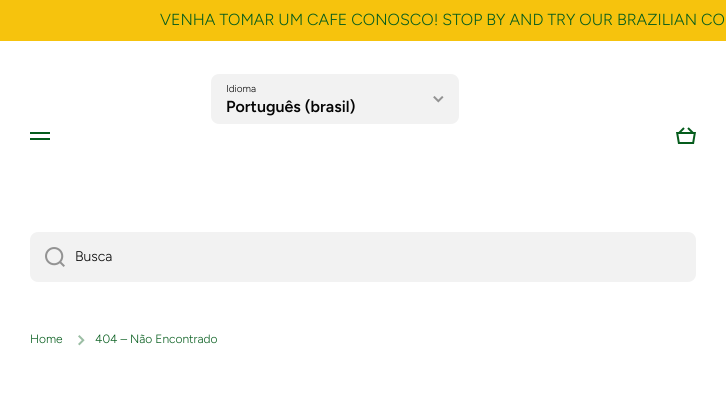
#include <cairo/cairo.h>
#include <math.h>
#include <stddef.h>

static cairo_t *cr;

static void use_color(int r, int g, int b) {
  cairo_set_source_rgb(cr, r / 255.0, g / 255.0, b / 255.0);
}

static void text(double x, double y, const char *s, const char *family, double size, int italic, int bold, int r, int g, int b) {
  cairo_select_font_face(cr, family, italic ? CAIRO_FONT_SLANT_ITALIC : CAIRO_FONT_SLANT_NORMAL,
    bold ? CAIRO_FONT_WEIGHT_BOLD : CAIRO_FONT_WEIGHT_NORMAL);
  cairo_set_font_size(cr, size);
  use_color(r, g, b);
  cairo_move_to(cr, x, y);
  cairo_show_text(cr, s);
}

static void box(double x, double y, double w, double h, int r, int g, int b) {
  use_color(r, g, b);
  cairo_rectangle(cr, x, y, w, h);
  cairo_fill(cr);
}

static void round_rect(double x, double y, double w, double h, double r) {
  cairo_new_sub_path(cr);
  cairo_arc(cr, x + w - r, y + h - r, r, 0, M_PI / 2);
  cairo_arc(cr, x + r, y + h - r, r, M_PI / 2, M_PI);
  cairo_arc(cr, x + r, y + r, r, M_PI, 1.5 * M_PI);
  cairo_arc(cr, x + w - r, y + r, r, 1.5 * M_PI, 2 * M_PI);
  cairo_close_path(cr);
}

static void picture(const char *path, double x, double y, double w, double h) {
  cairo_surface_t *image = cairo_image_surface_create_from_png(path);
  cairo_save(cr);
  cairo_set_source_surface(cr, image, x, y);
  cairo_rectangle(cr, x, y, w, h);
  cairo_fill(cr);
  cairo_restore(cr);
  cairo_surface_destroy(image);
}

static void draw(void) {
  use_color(255, 255, 255);
  cairo_paint(cr);
  box(0, 0, 726, 41, 246, 195, 13);
  use_color(242, 242, 242);
  round_rect(211, 74, 248, 50, 8);
  cairo_fill(cr);
  picture("img_01.png", 433, 96, 11, 7);
  box(30, 132, 20, 2, 5, 92, 28);
  box(30, 138, 20, 2, 5, 92, 28);
  picture("img_02.png", 676, 127, 20, 17);
  use_color(242, 242, 242);
  round_rect(30, 232, 666, 50, 8);
  cairo_fill(cr);
  picture("img_03.png", 45, 247, 20, 20);
  picture("img_04.png", 78, 335, 7, 11);
  text(160, 25, "VENHA TOMAR UM CAFE CONOSCO! STOP BY AND TRY OUR BRAZILIAN CO", "Figtree Light", 16, 0, 0, 5, 92, 28);
  text(226, 92, "Idioma", "Figtree Light", 10, 0, 0, 5, 5, 5);
  text(226, 112, "Português (brasil)", "Figtree SemiBold", 16, 0, 0, 5, 5, 5);
  text(75, 261, "Busca", "Figtree Light", 14, 0, 0, 5, 5, 5);
  text(30, 343, "Home", "Figtree Light", 12, 0, 0, 5, 92, 28);
  text(95, 343, "404 – Não Encontrado", "Figtree Light", 12, 0, 0, 5, 92, 28);
}

int main(void) {
  cairo_surface_t *surface = cairo_image_surface_create(CAIRO_FORMAT_RGB24, 726, 416);
  cr = cairo_create(surface);
  cairo_font_options_t *options = cairo_font_options_create();
  cairo_font_options_set_hint_metrics(options, CAIRO_HINT_METRICS_OFF);
  cairo_font_options_set_hint_style(options, CAIRO_HINT_STYLE_NONE);
  cairo_set_font_options(cr, options);
  cairo_set_miter_limit(cr, 4);
  draw();
  cairo_surface_write_to_png(surface, "out.png");
  cairo_font_options_destroy(options);
  cairo_destroy(cr);
  cairo_surface_destroy(surface);
  return 0;
}
